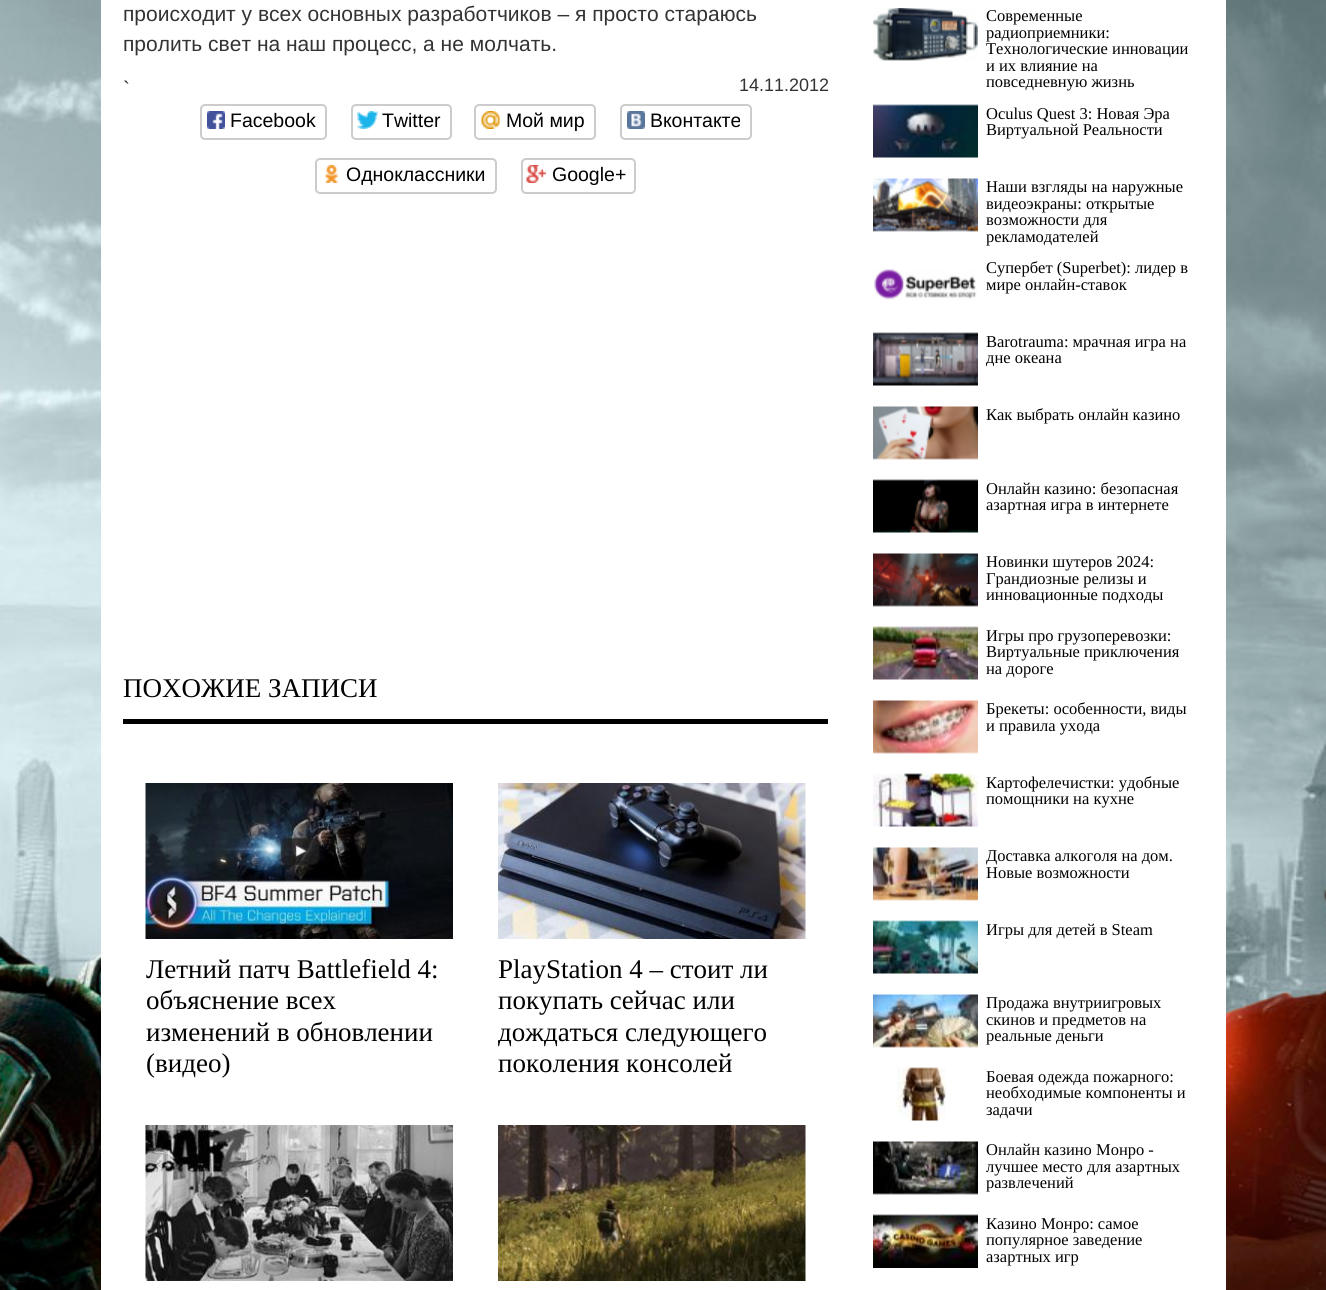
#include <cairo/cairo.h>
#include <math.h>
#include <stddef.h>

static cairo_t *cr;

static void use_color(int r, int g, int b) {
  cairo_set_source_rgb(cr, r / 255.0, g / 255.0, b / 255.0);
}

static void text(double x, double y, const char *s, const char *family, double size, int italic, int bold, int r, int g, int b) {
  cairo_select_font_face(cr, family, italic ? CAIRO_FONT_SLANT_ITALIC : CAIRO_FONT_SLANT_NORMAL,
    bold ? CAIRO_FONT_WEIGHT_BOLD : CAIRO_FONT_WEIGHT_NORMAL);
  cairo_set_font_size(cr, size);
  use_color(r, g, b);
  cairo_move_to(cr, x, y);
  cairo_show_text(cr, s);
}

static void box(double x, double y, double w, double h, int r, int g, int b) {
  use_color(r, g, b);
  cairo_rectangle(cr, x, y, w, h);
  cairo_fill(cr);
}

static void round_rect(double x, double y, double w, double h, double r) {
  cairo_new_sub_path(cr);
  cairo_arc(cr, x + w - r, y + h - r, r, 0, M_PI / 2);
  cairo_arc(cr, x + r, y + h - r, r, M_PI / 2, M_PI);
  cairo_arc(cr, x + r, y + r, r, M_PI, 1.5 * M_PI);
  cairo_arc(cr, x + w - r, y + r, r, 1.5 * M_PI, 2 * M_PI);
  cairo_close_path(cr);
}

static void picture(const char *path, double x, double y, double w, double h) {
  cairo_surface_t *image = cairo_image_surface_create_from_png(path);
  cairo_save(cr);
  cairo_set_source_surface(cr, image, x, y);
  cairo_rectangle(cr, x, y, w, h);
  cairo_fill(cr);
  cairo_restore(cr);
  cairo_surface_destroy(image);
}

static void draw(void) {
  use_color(255, 255, 255);
  cairo_paint(cr);
  picture("img_01.png", 0, 0, 1326, 1290);
  box(101, 0, 1125, 1290, 255, 255, 255);
  round_rect(201, 105, 125, 34, 4);
  use_color(204, 204, 204);
  cairo_stroke(cr);
  picture("img_02.png", 207, 111, 18, 18);
  round_rect(352, 105, 99, 34, 4);
  cairo_stroke(cr);
  picture("img_03.png", 357, 111, 21, 18);
  round_rect(475, 105, 120, 34, 4);
  cairo_stroke(cr);
  picture("img_04.png", 481, 111, 19, 18);
  round_rect(621, 105, 130, 34, 4);
  cairo_stroke(cr);
  picture("img_05.png", 627, 111, 18, 18);
  round_rect(316, 159, 180, 34, 4);
  cairo_stroke(cr);
  picture("img_06.png", 325, 165, 13, 18);
  round_rect(522, 159, 113, 34, 4);
  cairo_stroke(cr);
  picture("img_07.png", 526, 165, 20, 18);
  box(123, 719, 705, 5, 0, 0, 0);
  picture("img_08.png", 145, 783, 308, 156);
  picture("img_09.png", 498, 783, 308, 156);
  picture("img_10.png", 145, 1125, 308, 156);
  picture("img_11.png", 498, 1125, 308, 156);
  picture("img_12.png", 873, 8, 105, 53);
  picture("img_13.png", 873, 104, 105, 54);
  picture("img_14.png", 873, 178, 105, 54);
  picture("img_15.png", 874, 269, 103, 31);
  picture("img_16.png", 873, 332, 105, 54);
  picture("img_17.png", 873, 406, 105, 54);
  picture("img_18.png", 873, 479, 105, 54);
  picture("img_19.png", 873, 553, 105, 54);
  picture("img_20.png", 873, 626, 105, 54);
  picture("img_21.png", 873, 700, 105, 54);
  picture("img_22.png", 873, 773, 105, 54);
  picture("img_23.png", 873, 847, 105, 54);
  picture("img_24.png", 873, 920, 105, 54);
  picture("img_25.png", 873, 994, 105, 54);
  picture("img_26.png", 897, 1067, 49, 54);
  picture("img_27.png", 873, 1141, 105, 54);
  picture("img_28.png", 873, 1214, 105, 54);
  text(123, 21, "происходит у всех основных разработчиков – я просто стараюсь", "Liberation Sans", 21, 0, 0, 51, 51, 51);
  text(123, 51, "пролить свет на наш процесс, а не молчать.", "Liberation Sans", 21, 0, 0, 51, 51, 51);
  text(123, 96, "`", "Liberation Sans", 21, 0, 0, 51, 51, 51);
  text(739, 91, "14.11.2012", "Liberation Sans", 18, 0, 0, 51, 51, 51);
  text(230, 127, "Facebook", "Liberation Sans", 19.5, 0, 0, 0, 0, 0);
  text(382, 127, "Twitter", "Liberation Sans", 19.5, 0, 0, 0, 0, 0);
  text(506, 127, "Мой мир", "Liberation Sans", 19.5, 0, 0, 0, 0, 0);
  text(650, 127, "Вконтакте", "Liberation Sans", 19.5, 0, 0, 0, 0, 0);
  text(346, 181, "Одноклассники", "Liberation Sans", 19.5, 0, 0, 0, 0, 0);
  text(552, 181, "Google+", "Liberation Sans", 19.5, 0, 0, 0, 0, 0);
  text(123, 697, "ПОХОЖИЕ ЗАПИСИ", "Liberation Serif", 27, 0, 0, 0, 0, 0);
  text(146, 978, "Летний патч Battlefield 4:", "Liberation Serif", 27, 0, 0, 0, 0, 0);
  text(146, 1009, "объяснение всех", "Liberation Serif", 27, 0, 0, 0, 0, 0);
  text(146, 1041, "изменений в обновлении", "Liberation Serif", 27, 0, 0, 0, 0, 0);
  text(146, 1072, "(видео)", "Liberation Serif", 27, 0, 0, 0, 0, 0);
  text(498, 978, "PlayStation 4 – стоит ли", "Liberation Serif", 27, 0, 0, 0, 0, 0);
  text(498, 1009, "покупать сейчас или", "Liberation Serif", 27, 0, 0, 0, 0, 0);
  text(498, 1041, "дождаться следующего", "Liberation Serif", 27, 0, 0, 0, 0, 0);
  text(498, 1072, "поколения консолей", "Liberation Serif", 27, 0, 0, 0, 0, 0);
  text(986, 21, "Современные", "Liberation Serif", 16.5, 0, 0, 0, 0, 0);
  text(986, 38, "радиоприемники:", "Liberation Serif", 16.5, 0, 0, 0, 0, 0);
  text(986, 54, "Технологические инновации", "Liberation Serif", 16.5, 0, 0, 0, 0, 0);
  text(986, 71, "и их влияние на", "Liberation Serif", 16.5, 0, 0, 0, 0, 0);
  text(986, 87, "повседневную жизнь", "Liberation Serif", 16.5, 0, 0, 0, 0, 0);
  text(986, 119, "Oculus Quest 3: Новая Эра", "Liberation Serif", 16.5, 0, 0, 0, 0, 0);
  text(986, 135, "Виртуальной Реальности", "Liberation Serif", 16.5, 0, 0, 0, 0, 0);
  text(986, 192, "Наши взгляды на наружные", "Liberation Serif", 16.5, 0, 0, 0, 0, 0);
  text(986, 209, "видеоэкраны: открытые", "Liberation Serif", 16.5, 0, 0, 0, 0, 0);
  text(986, 225, "возможности для", "Liberation Serif", 16.5, 0, 0, 0, 0, 0);
  text(986, 242, "рекламодателей", "Liberation Serif", 16.5, 0, 0, 0, 0, 0);
  text(986, 273, "Супербет (Superbet): лидер в", "Liberation Serif", 16.5, 0, 0, 0, 0, 0);
  text(986, 290, "мире онлайн-ставок", "Liberation Serif", 16.5, 0, 0, 0, 0, 0);
  text(986, 347, "Barotrauma: мрачная игра на", "Liberation Serif", 16.5, 0, 0, 0, 0, 0);
  text(986, 363, "дне океана", "Liberation Serif", 16.5, 0, 0, 0, 0, 0);
  text(986, 420, "Как выбрать онлайн казино", "Liberation Serif", 16.5, 0, 0, 0, 0, 0);
  text(986, 494, "Онлайн казино: безопасная", "Liberation Serif", 16.5, 0, 0, 0, 0, 0);
  text(986, 510, "азартная игра в интернете", "Liberation Serif", 16.5, 0, 0, 0, 0, 0);
  text(986, 567, "Новинки шутеров 2024:", "Liberation Serif", 16.5, 0, 0, 0, 0, 0);
  text(986, 584, "Грандиозные релизы и", "Liberation Serif", 16.5, 0, 0, 0, 0, 0);
  text(986, 600, "инновационные подходы", "Liberation Serif", 16.5, 0, 0, 0, 0, 0);
  text(986, 641, "Игры про грузоперевозки:", "Liberation Serif", 16.5, 0, 0, 0, 0, 0);
  text(986, 657, "Виртуальные приключения", "Liberation Serif", 16.5, 0, 0, 0, 0, 0);
  text(986, 674, "на дороге", "Liberation Serif", 16.5, 0, 0, 0, 0, 0);
  text(986, 714, "Брекеты: особенности, виды", "Liberation Serif", 16.5, 0, 0, 0, 0, 0);
  text(986, 731, "и правила ухода", "Liberation Serif", 16.5, 0, 0, 0, 0, 0);
  text(986, 788, "Картофелечистки: удобные", "Liberation Serif", 16.5, 0, 0, 0, 0, 0);
  text(986, 804, "помощники на кухне", "Liberation Serif", 16.5, 0, 0, 0, 0, 0);
  text(986, 861, "Доставка алкоголя на дом.", "Liberation Serif", 16.5, 0, 0, 0, 0, 0);
  text(986, 878, "Новые возможности", "Liberation Serif", 16.5, 0, 0, 0, 0, 0);
  text(986, 935, "Игры для детей в Steam", "Liberation Serif", 16.5, 0, 0, 0, 0, 0);
  text(986, 1008, "Продажа внутриигровых", "Liberation Serif", 16.5, 0, 0, 0, 0, 0);
  text(986, 1025, "скинов и предметов на", "Liberation Serif", 16.5, 0, 0, 0, 0, 0);
  text(986, 1041, "реальные деньги", "Liberation Serif", 16.5, 0, 0, 0, 0, 0);
  text(986, 1082, "Боевая одежда пожарного:", "Liberation Serif", 16.5, 0, 0, 0, 0, 0);
  text(986, 1098, "необходимые компоненты и", "Liberation Serif", 16.5, 0, 0, 0, 0, 0);
  text(986, 1115, "задачи", "Liberation Serif", 16.5, 0, 0, 0, 0, 0);
  text(986, 1155, "Онлайн казино Монро -", "Liberation Serif", 16.5, 0, 0, 0, 0, 0);
  text(986, 1172, "лучшее место для азартных", "Liberation Serif", 16.5, 0, 0, 0, 0, 0);
  text(986, 1188, "развлечений", "Liberation Serif", 16.5, 0, 0, 0, 0, 0);
  text(986, 1229, "Казино Монро: самое", "Liberation Serif", 16.5, 0, 0, 0, 0, 0);
  text(986, 1245, "популярное заведение", "Liberation Serif", 16.5, 0, 0, 0, 0, 0);
  text(986, 1262, "азартных игр", "Liberation Serif", 16.5, 0, 0, 0, 0, 0);
}

int main(void) {
  cairo_surface_t *surface = cairo_image_surface_create(CAIRO_FORMAT_RGB24, 1326, 1290);
  cr = cairo_create(surface);
  cairo_font_options_t *options = cairo_font_options_create();
  cairo_font_options_set_hint_metrics(options, CAIRO_HINT_METRICS_OFF);
  cairo_font_options_set_hint_style(options, CAIRO_HINT_STYLE_NONE);
  cairo_set_font_options(cr, options);
  cairo_set_miter_limit(cr, 4);
  draw();
  cairo_surface_write_to_png(surface, "out.png");
  cairo_font_options_destroy(options);
  cairo_destroy(cr);
  cairo_surface_destroy(surface);
  return 0;
}
